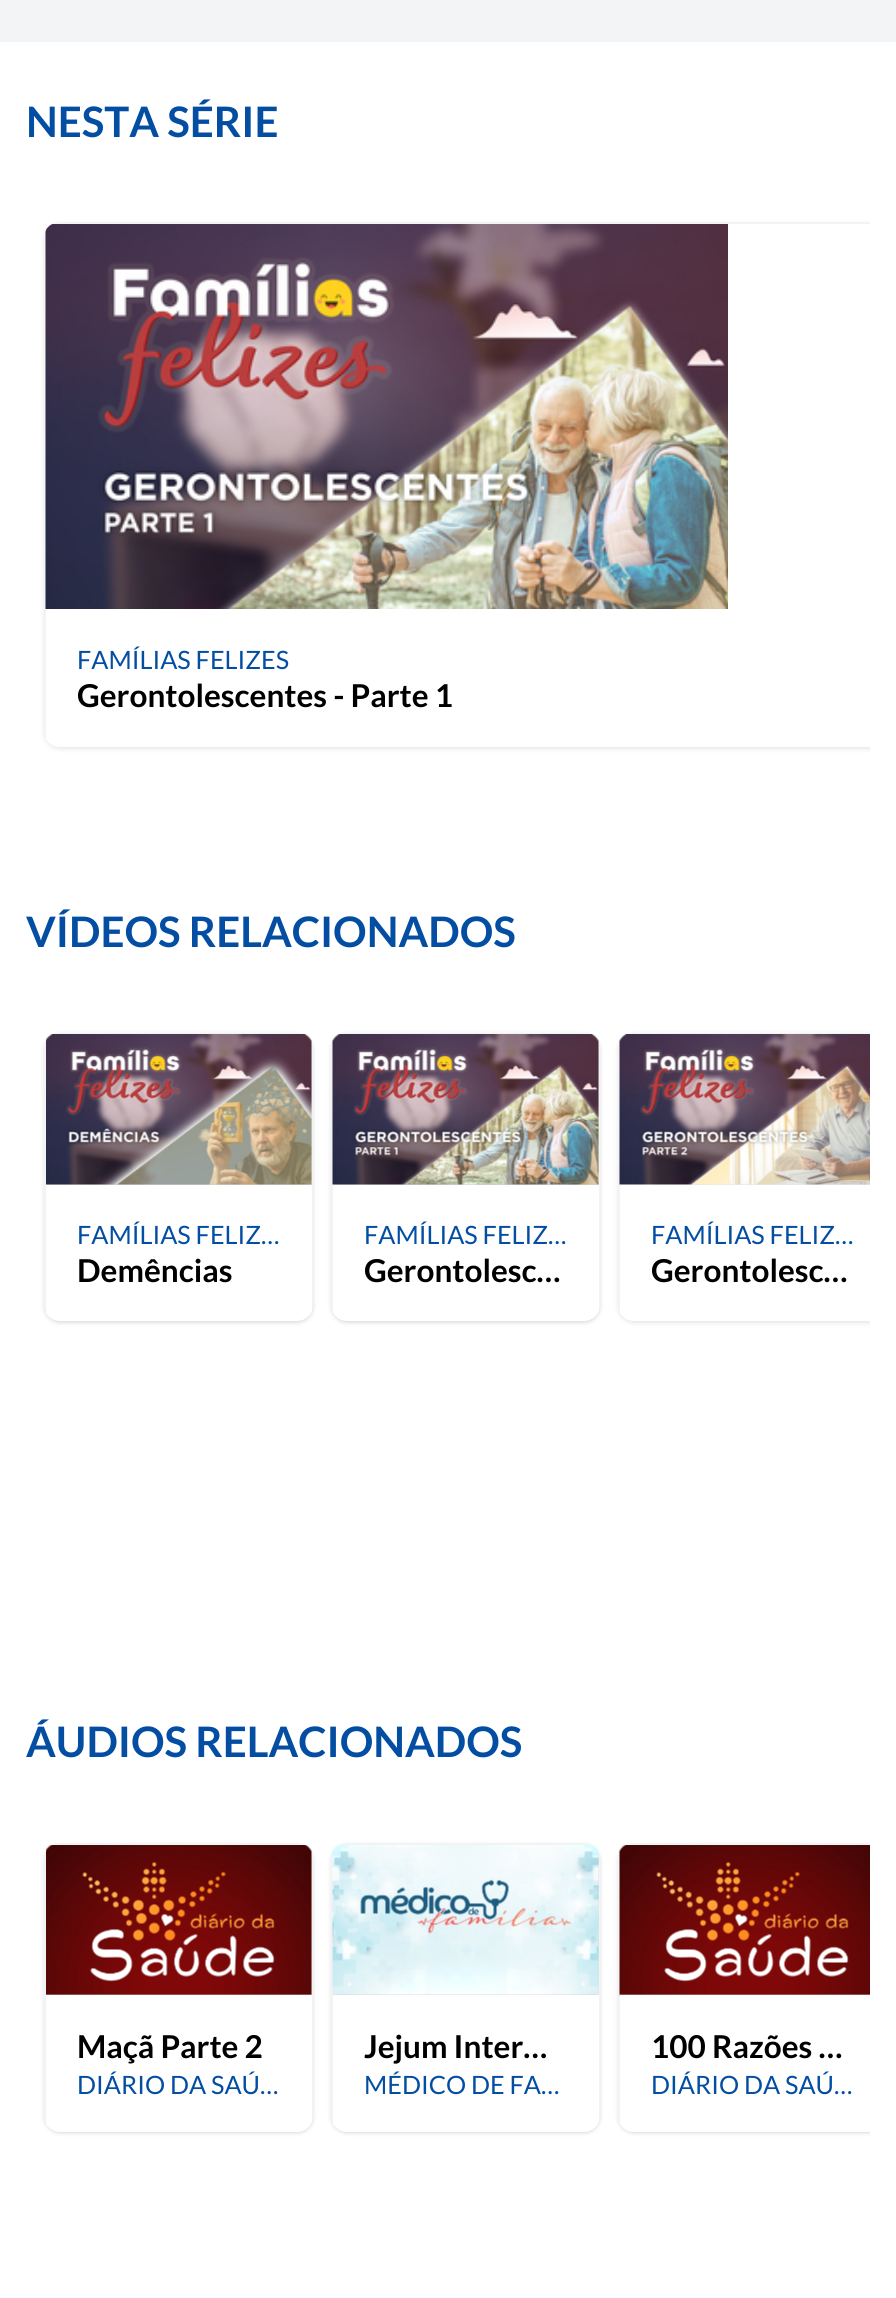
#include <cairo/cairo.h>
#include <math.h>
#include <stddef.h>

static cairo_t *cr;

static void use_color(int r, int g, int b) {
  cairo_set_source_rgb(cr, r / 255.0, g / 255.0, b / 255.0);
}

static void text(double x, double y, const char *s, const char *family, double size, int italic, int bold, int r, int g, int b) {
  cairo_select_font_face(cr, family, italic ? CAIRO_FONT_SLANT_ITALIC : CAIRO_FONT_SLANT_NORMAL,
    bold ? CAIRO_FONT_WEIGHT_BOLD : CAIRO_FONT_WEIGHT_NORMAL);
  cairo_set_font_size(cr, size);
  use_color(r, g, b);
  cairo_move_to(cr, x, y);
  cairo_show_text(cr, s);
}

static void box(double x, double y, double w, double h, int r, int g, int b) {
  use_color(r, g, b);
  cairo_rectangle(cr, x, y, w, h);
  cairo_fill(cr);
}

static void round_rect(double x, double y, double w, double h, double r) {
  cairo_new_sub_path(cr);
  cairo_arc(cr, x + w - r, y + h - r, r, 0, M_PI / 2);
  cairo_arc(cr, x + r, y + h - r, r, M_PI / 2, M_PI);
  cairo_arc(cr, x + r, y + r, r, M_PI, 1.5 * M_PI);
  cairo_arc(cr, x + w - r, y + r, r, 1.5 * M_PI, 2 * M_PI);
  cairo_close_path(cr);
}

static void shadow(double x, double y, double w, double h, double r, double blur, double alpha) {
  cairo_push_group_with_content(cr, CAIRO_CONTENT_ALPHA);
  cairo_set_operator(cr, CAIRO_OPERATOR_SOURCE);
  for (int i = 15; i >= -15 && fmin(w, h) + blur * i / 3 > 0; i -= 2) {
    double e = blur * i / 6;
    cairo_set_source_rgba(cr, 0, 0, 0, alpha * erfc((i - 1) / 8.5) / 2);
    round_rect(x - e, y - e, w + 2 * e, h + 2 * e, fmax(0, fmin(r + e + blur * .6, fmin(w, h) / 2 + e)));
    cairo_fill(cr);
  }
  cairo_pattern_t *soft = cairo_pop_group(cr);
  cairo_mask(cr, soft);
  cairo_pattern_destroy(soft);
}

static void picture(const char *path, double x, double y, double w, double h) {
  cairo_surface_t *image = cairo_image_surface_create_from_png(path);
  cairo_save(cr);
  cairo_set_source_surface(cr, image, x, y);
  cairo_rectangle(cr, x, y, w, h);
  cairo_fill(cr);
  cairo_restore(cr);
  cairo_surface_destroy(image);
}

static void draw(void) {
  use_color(255, 255, 255);
  cairo_paint(cr);
  box(0, 0, 896, 42, 243, 244, 246);
  cairo_save(cr);
  cairo_rectangle(cr, 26, 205, 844, 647);
  cairo_clip(cr);
  cairo_set_fill_rule(cr, CAIRO_FILL_RULE_EVEN_ODD);
  cairo_new_path(cr);
  cairo_move_to(cr, 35, 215);
  cairo_line_to(cr, 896, 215);
  cairo_line_to(cr, 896, 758);
  cairo_line_to(cr, 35, 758);
  cairo_close_path(cr);
  cairo_move_to(cr, 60, 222);
  cairo_line_to(cr, 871, 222);
  cairo_curve_to(cr, 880, 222, 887, 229, 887, 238);
  cairo_line_to(cr, 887, 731);
  cairo_curve_to(cr, 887, 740, 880, 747, 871, 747);
  cairo_line_to(cr, 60, 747);
  cairo_curve_to(cr, 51, 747, 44, 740, 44, 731);
  cairo_line_to(cr, 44, 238);
  cairo_curve_to(cr, 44, 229, 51, 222, 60, 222);
  cairo_close_path(cr);
  cairo_clip(cr);
  use_color(0, 0, 0);
  shadow(44, 224, 843, 525, 16, 2.5, 0.1);
  cairo_restore(cr);
  cairo_save(cr);
  round_rect(44, 222, 843, 525, 16);
  cairo_clip(cr);
  box(44, 222, 826, 2, 241, 244, 245);
  box(44, 222, 2, 525, 241, 244, 245);
  cairo_restore(cr);
  picture("img_01.png", 45, 224, 683, 385);
  use_color(0, 0, 0);
  shadow(46, 1036, 266, 285, 14, 2, 0.1);
  shadow(44, 1034, 269, 289, 16, 2.5, 0.1);
  cairo_save(cr);
  round_rect(44, 1033, 269, 288, 16);
  cairo_clip(cr);
  box(44, 1033, 269, 2, 241, 244, 245);
  box(312, 1043, 1, 268, 241, 244, 245);
  box(44, 1033, 2, 288, 241, 244, 245);
  cairo_restore(cr);
  picture("img_02.png", 46, 1034, 266, 151);
  cairo_save(cr);
  round_rect(44, 1033, 269, 288, 16);
  cairo_clip(cr);
  box(46, 1185, 266, 136, 255, 255, 255);
  cairo_restore(cr);
  shadow(333, 1036, 266, 285, 14, 2, 0.1);
  shadow(331, 1034, 269, 289, 16, 2.5, 0.1);
  cairo_save(cr);
  round_rect(331, 1033, 269, 288, 16);
  cairo_clip(cr);
  box(331, 1033, 269, 2, 241, 244, 245);
  box(599, 1043, 1, 268, 241, 244, 245);
  box(331, 1033, 2, 288, 241, 244, 245);
  cairo_restore(cr);
  picture("img_03.png", 332, 1034, 267, 151);
  cairo_save(cr);
  round_rect(331, 1033, 269, 288, 16);
  cairo_clip(cr);
  box(333, 1185, 266, 136, 255, 255, 255);
  cairo_restore(cr);
  cairo_save(cr);
  cairo_rectangle(cr, 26, 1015, 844, 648);
  cairo_clip(cr);
  shadow(618, 1034, 269, 289, 16, 2.5, 0.1);
  cairo_restore(cr);
  cairo_save(cr);
  round_rect(618, 1033, 269, 288, 16);
  cairo_clip(cr);
  box(618, 1033, 252, 2, 241, 244, 245);
  box(618, 1033, 2, 288, 241, 244, 245);
  cairo_restore(cr);
  picture("img_04.png", 619, 1034, 251, 151);
  cairo_save(cr);
  round_rect(618, 1033, 269, 288, 16);
  cairo_clip(cr);
  box(620, 1185, 250, 136, 255, 255, 255);
  cairo_restore(cr);
  shadow(46, 1846, 266, 286, 14, 2, 0.1);
  shadow(44, 1845, 269, 288, 16, 2.5, 0.1);
  cairo_save(cr);
  round_rect(44, 1843, 269, 289, 16);
  cairo_clip(cr);
  box(44, 1843, 269, 2, 241, 244, 245);
  box(312, 1853, 1, 269, 241, 244, 245);
  box(44, 1843, 2, 289, 241, 244, 245);
  cairo_restore(cr);
  picture("img_05.png", 46, 1845, 266, 150);
  cairo_save(cr);
  round_rect(44, 1843, 269, 289, 16);
  cairo_clip(cr);
  box(46, 1995, 266, 137, 255, 255, 255);
  cairo_restore(cr);
  shadow(333, 1846, 266, 286, 14, 2, 0.1);
  shadow(331, 1845, 269, 288, 16, 2.5, 0.1);
  cairo_save(cr);
  round_rect(331, 1843, 269, 289, 16);
  cairo_clip(cr);
  box(331, 1843, 269, 2, 241, 244, 245);
  box(599, 1853, 1, 269, 241, 244, 245);
  box(331, 1843, 2, 289, 241, 244, 245);
  cairo_restore(cr);
  picture("img_06.png", 332, 1845, 267, 151);
  cairo_save(cr);
  round_rect(331, 1843, 269, 289, 16);
  cairo_clip(cr);
  box(333, 1995, 266, 137, 255, 255, 255);
  cairo_restore(cr);
  cairo_save(cr);
  cairo_rectangle(cr, 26, 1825, 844, 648);
  cairo_clip(cr);
  shadow(620, 1846, 266, 286, 14, 2, 0.1);
  shadow(618, 1845, 269, 288, 16, 2.5, 0.1);
  cairo_restore(cr);
  cairo_save(cr);
  round_rect(618, 1843, 269, 289, 16);
  cairo_clip(cr);
  box(618, 1843, 252, 2, 241, 244, 245);
  box(618, 1843, 2, 289, 241, 244, 245);
  cairo_restore(cr);
  picture("img_07.png", 619, 1845, 251, 151);
  cairo_save(cr);
  round_rect(618, 1843, 269, 289, 16);
  cairo_clip(cr);
  box(620, 1995, 250, 137, 255, 255, 255);
  cairo_restore(cr);
  text(26, 137, "NESTA SÉRIE", "Lato", 42, 0, 1, 3, 78, 162);
  text(77, 669, "FAMÍLIAS FELIZES", "Lato", 25.25, 0, 0, 3, 78, 162);
  text(77, 707, "Gerontolescentes - Parte 1", "Lato", 31.5, 0, 1, 0, 0, 0);
  text(26, 947, "VÍDEOS RELACIONADOS", "Lato", 42, 0, 1, 3, 78, 162);
  text(77, 1244, "FAMÍLIAS FELIZ…", "Lato", 25.25, 0, 0, 3, 78, 162);
  text(77, 1282, "Demências", "Lato", 31.5, 0, 1, 0, 0, 0);
  text(364, 1244, "FAMÍLIAS FELIZ…", "Lato", 25.25, 0, 0, 3, 78, 162);
  text(364, 1282, "Gerontolesc…", "Lato", 31.5, 0, 1, 0, 0, 0);
  text(651, 1244, "FAMÍLIAS FELIZ…", "Lato", 25.25, 0, 0, 3, 78, 162);
  text(651, 1282, "Gerontolesc…", "Lato", 31.5, 0, 1, 0, 0, 0);
  text(26, 1757, "ÁUDIOS RELACIONADOS", "Lato", 42, 0, 1, 3, 78, 162);
  text(77, 2058, "Maçã Parte 2", "Lato", 31.5, 0, 1, 0, 0, 0);
  text(77, 2094, "DIÁRIO DA SAÚ…", "Lato", 25.25, 0, 0, 3, 78, 162);
  text(364, 2058, "Jejum Inter…", "Lato", 31.5, 0, 1, 0, 0, 0);
  text(364, 2094, "MÉDICO DE FA…", "Lato", 25.25, 0, 0, 3, 78, 162);
  text(651, 2058, "100 Razões …", "Lato", 31.5, 0, 1, 0, 0, 0);
  text(651, 2094, "DIÁRIO DA SAÚ…", "Lato", 25.25, 0, 0, 3, 78, 162);
}

int main(void) {
  cairo_surface_t *surface = cairo_image_surface_create(CAIRO_FORMAT_RGB24, 896, 2298);
  cr = cairo_create(surface);
  cairo_font_options_t *options = cairo_font_options_create();
  cairo_font_options_set_hint_metrics(options, CAIRO_HINT_METRICS_OFF);
  cairo_font_options_set_hint_style(options, CAIRO_HINT_STYLE_NONE);
  cairo_set_font_options(cr, options);
  cairo_set_miter_limit(cr, 4);
  draw();
  cairo_surface_write_to_png(surface, "out.png");
  cairo_font_options_destroy(options);
  cairo_destroy(cr);
  cairo_surface_destroy(surface);
  return 0;
}
